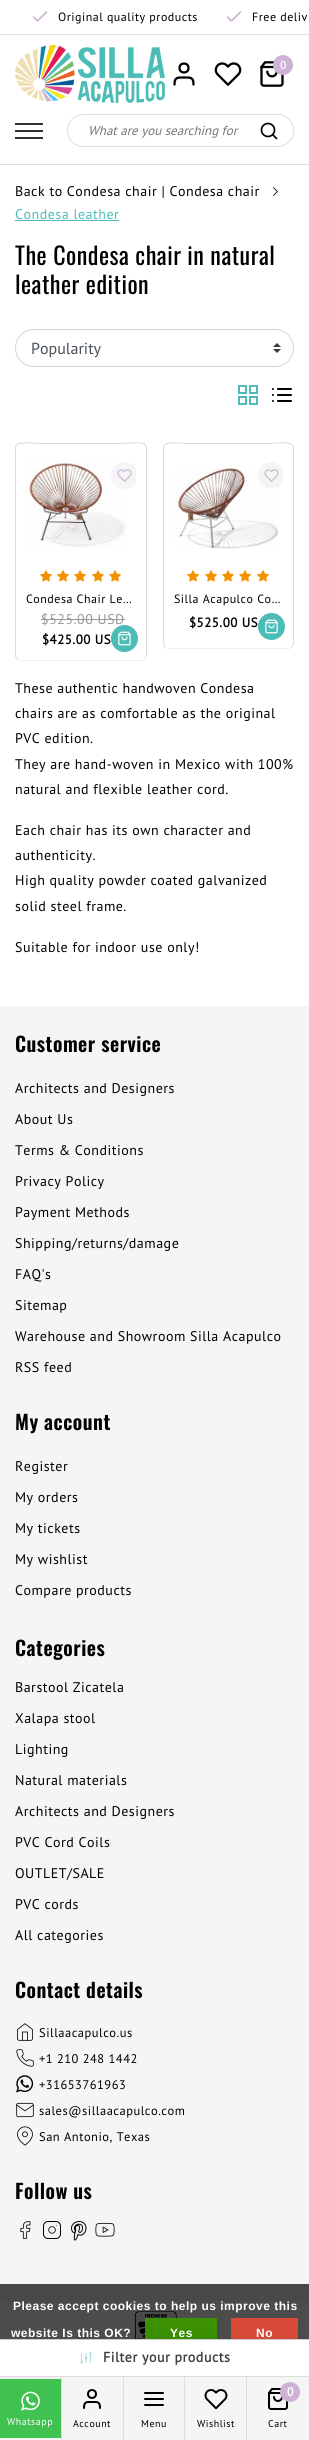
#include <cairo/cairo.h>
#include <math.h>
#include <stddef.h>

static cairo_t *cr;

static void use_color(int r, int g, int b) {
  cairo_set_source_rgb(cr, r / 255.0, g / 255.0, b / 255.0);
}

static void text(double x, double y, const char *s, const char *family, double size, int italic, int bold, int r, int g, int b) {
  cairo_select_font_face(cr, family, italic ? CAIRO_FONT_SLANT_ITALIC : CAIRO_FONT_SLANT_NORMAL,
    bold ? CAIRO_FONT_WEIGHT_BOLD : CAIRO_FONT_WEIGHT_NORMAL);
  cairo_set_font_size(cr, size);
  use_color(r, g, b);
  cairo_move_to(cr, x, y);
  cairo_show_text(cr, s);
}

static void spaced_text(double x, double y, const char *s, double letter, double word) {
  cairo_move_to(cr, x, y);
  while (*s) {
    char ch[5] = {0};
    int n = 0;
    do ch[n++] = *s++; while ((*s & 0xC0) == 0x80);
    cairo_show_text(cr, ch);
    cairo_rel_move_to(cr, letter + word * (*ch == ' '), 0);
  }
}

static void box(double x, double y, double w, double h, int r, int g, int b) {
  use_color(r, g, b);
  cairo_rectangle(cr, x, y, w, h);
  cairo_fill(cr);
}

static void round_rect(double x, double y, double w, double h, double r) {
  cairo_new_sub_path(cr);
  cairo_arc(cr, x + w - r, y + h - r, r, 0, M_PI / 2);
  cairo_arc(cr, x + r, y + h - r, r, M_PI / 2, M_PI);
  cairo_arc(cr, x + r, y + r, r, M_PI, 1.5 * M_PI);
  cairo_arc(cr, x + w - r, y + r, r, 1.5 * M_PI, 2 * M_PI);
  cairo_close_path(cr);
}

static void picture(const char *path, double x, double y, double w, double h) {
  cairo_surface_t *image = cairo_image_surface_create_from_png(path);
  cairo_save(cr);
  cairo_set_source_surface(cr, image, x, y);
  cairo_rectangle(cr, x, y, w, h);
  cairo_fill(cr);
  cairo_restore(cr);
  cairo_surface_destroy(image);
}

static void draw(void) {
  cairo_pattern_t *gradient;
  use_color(255, 255, 255);
  cairo_paint(cr);
  box(0, 164, 309, 1, 221, 221, 221);
  box(0, 34, 309, 1, 222, 226, 230);
  cairo_new_path(cr);
  cairo_move_to(cr, 46.5, 12);
  cairo_line_to(cr, 37.5, 21);
  cairo_line_to(cr, 33.5, 17);
  use_color(206, 179, 213);
  cairo_set_line_width(cr, 1.7);
  cairo_set_line_cap(cr, CAIRO_LINE_CAP_ROUND);
  cairo_set_line_join(cr, CAIRO_LINE_JOIN_ROUND);
  cairo_stroke(cr);
  cairo_new_path(cr);
  cairo_move_to(cr, 240.5, 12);
  cairo_line_to(cr, 231.5, 21);
  cairo_line_to(cr, 227.5, 17);
  cairo_stroke(cr);
  picture("img_01.png", 15, 45, 150, 58);
  cairo_arc(cr, 184, 68, 4.5, 0, 2 * M_PI);
  use_color(0, 0, 0);
  cairo_set_line_width(cr, 2.3);
  cairo_set_line_cap(cr, CAIRO_LINE_CAP_BUTT);
  cairo_set_line_join(cr, CAIRO_LINE_JOIN_MITER);
  cairo_stroke(cr);
  cairo_new_path(cr);
  cairo_move_to(cr, 193.5, 84.5);
  cairo_curve_to(cr, 193.5, 77, 190.5, 77.5, 184, 77.5);
  cairo_curve_to(cr, 177.5, 77.5, 174.5, 77, 174.5, 84.5);
  cairo_set_line_cap(cr, CAIRO_LINE_CAP_ROUND);
  cairo_set_line_join(cr, CAIRO_LINE_JOIN_ROUND);
  cairo_stroke(cr);
  picture("img_02.png", 214, 62, 28, 24);
  picture("img_03.png", 260, 61, 24, 26);
  use_color(206, 179, 213);
  cairo_arc(cr, 283, 65, 10, 0, 2 * M_PI);
  cairo_fill(cr);
  box(15, 123, 28, 2, 52, 49, 47);
  box(15, 130, 28, 2, 52, 49, 47);
  box(15, 137, 28, 2, 52, 49, 47);
  round_rect(67.5, 114.5, 226, 32, 16);
  use_color(221, 221, 221);
  cairo_set_line_width(cr, 1);
  cairo_set_line_cap(cr, CAIRO_LINE_CAP_BUTT);
  cairo_set_line_join(cr, CAIRO_LINE_JOIN_MITER);
  cairo_stroke(cr);
  cairo_arc(cr, 268, 130, 6.5, 0, 2 * M_PI);
  use_color(0, 0, 0);
  cairo_set_line_width(cr, 1.7);
  cairo_stroke(cr);
  cairo_new_path(cr);
  cairo_move_to(cr, 276.5, 138.5);
  cairo_line_to(cr, 273, 135);
  cairo_set_line_cap(cr, CAIRO_LINE_CAP_ROUND);
  cairo_set_line_join(cr, CAIRO_LINE_JOIN_ROUND);
  cairo_stroke(cr);
  picture("img_04.png", 272, 187, 6, 9);
  box(15, 220, 104, 1, 76, 188, 183);
  picture("img_05.png", 273, 343, 8, 10);
  round_rect(15.5, 329.5, 278, 37, 18.5);
  use_color(206, 212, 218);
  cairo_set_line_width(cr, 1);
  cairo_set_line_cap(cr, CAIRO_LINE_CAP_BUTT);
  cairo_set_line_join(cr, CAIRO_LINE_JOIN_MITER);
  cairo_stroke(cr);
  cairo_rectangle(cr, 239, 386, 7, 7);
  use_color(76, 188, 183);
  cairo_set_line_width(cr, 2);
  cairo_stroke(cr);
  cairo_rectangle(cr, 250, 386, 7, 7);
  cairo_stroke(cr);
  cairo_rectangle(cr, 239, 397, 7, 7);
  cairo_stroke(cr);
  cairo_rectangle(cr, 250, 397, 7, 7);
  cairo_stroke(cr);
  picture("img_06.png", 272, 388, 20, 14);
  cairo_new_path(cr);
  cairo_move_to(cr, 145, 659);
  cairo_line_to(cr, 142.5, 660.5);
  cairo_line_to(cr, 40.5, 660.5);
  cairo_line_to(cr, 20, 660.5);
  cairo_line_to(cr, 17, 659);
  use_color(238, 238, 238);
  cairo_set_line_width(cr, 1);
  cairo_stroke(cr);
  cairo_new_path(cr);
  cairo_move_to(cr, 17, 659);
  cairo_line_to(cr, 15.5, 656);
  cairo_line_to(cr, 15.5, 448);
  cairo_curve_to(cr, 15.5, 440, 31.5, 443.5, 40.5, 443.5);
  cairo_line_to(cr, 121.5, 443.5);
  cairo_curve_to(cr, 130.5, 443.5, 146.5, 440, 146.5, 448);
  cairo_line_to(cr, 146.5, 656);
  cairo_line_to(cr, 145, 659);
  use_color(218, 218, 220);
  cairo_stroke(cr);
  picture("img_07.png", 26, 461, 101, 87);
  cairo_save(cr);
  cairo_rectangle(cr, 26, 454, 110, 109);
  cairo_clip(cr);
  use_color(245, 245, 245);
  cairo_arc(cr, 124.5, 475.5, 13.5, 0, 2 * M_PI);
  cairo_fill(cr);
  cairo_restore(cr);
  picture("img_08.png", 117, 469, 15, 13);
  picture("img_09.png", 40, 570, 12, 12);
  picture("img_09.png", 57, 570, 12, 12);
  picture("img_09.png", 74, 570, 12, 12);
  picture("img_09.png", 92, 570, 12, 12);
  picture("img_09.png", 109, 570, 12, 12);
  box(41, 619, 84, 1, 153, 153, 153);
  cairo_new_path(cr);
  cairo_move_to(cr, 292, 647);
  cairo_line_to(cr, 289, 648.5);
  cairo_line_to(cr, 167.5, 648.5);
  cairo_line_to(cr, 165, 647);
  use_color(238, 238, 238);
  cairo_stroke(cr);
  cairo_new_path(cr);
  cairo_move_to(cr, 165, 647);
  cairo_line_to(cr, 163.5, 644);
  cairo_line_to(cr, 163.5, 448);
  cairo_curve_to(cr, 163.5, 440, 179.5, 443.5, 188, 443.5);
  cairo_line_to(cr, 269, 443.5);
  cairo_curve_to(cr, 277.5, 443.5, 293.5, 440, 293.5, 448);
  cairo_line_to(cr, 293.5, 644);
  cairo_line_to(cr, 292, 647);
  use_color(218, 218, 220);
  cairo_stroke(cr);
  picture("img_11.png", 174, 468, 105, 81);
  cairo_save(cr);
  cairo_rectangle(cr, 174, 454, 109, 109);
  cairo_clip(cr);
  use_color(245, 245, 245);
  cairo_arc(cr, 271.5, 475.5, 13.5, 0, 2 * M_PI);
  cairo_fill(cr);
  cairo_restore(cr);
  picture("img_08.png", 264, 469, 15, 13);
  picture("img_09.png", 187, 570, 12, 12);
  picture("img_09.png", 205, 570, 12, 12);
  picture("img_09.png", 222, 570, 12, 12);
  picture("img_09.png", 239, 570, 12, 12);
  picture("img_09.png", 257, 570, 12, 12);
  use_color(76, 188, 183);
  cairo_arc(cr, 271.5, 626.5, 13, 0, 2 * M_PI);
  cairo_fill_preserve(cr);
  cairo_stroke(cr);
  picture("img_10.png", 265, 619, 13, 15);
  box(0, 1006, 309, 1296, 245, 245, 245);
  picture("img_12.png", 17, 2023, 16, 18);
  picture("img_13.png", 16, 2049, 18, 18);
  picture("img_14.png", 16, 2075, 18, 18);
  picture("img_15.png", 16, 2102, 18, 16);
  picture("img_16.png", 17, 2126, 16, 20);
  picture("img_17.png", 20, 2221, 11, 18);
  picture("img_18.png", 43, 2221, 18, 18);
  picture("img_19.png", 71, 2221, 16, 20);
  picture("img_20.png", 95, 2222, 20, 15);
  picture("img_21.png", 134, 2311, 43, 28);
  cairo_set_source_rgba(cr, 0, 0, 0, 0.7);
  cairo_rectangle(cr, 0, 2284, 309, 55);
  cairo_fill(cr);
  gradient = cairo_pattern_create_linear(181, 2318, 181, 2348);
  cairo_pattern_add_color_stop_rgba(gradient, 0, 0.235, 0.576, 0, 1);
  cairo_pattern_add_color_stop_rgba(gradient, 1, 0.224, 0.541, 0, 1);
  cairo_set_source(cr, gradient);
  cairo_pattern_destroy(gradient);
  cairo_rectangle(cr, 145, 2318, 72, 21);
  cairo_fill(cr);
  gradient = cairo_pattern_create_linear(265, 2318, 265, 2348);
  cairo_pattern_add_color_stop_rgba(gradient, 0, 0.863, 0.29, 0.22, 1);
  cairo_pattern_add_color_stop_rgba(gradient, 1, 0.82, 0.282, 0.212, 1);
  cairo_set_source(cr, gradient);
  cairo_pattern_destroy(gradient);
  cairo_rectangle(cr, 231, 2318, 67, 21);
  cairo_fill(cr);
  box(0, 2339, 309, 1, 204, 204, 204);
  picture("img_22.png", 80, 2352, 12, 12);
  box(0, 2377, 61, 63, 245, 245, 245);
  box(0, 2376, 309, 1, 221, 221, 221);
  box(61, 2376, 1, 64, 221, 221, 221);
  box(0, 2379, 61, 59, 63, 194, 80);
  picture("img_23.png", 21, 2391, 19, 20);
  box(62, 2377, 61, 63, 245, 245, 245);
  box(123, 2376, 1, 64, 221, 221, 221);
  cairo_arc(cr, 92, 2394, 4, 0, 2 * M_PI);
  use_color(0, 0, 0);
  cairo_set_line_width(cr, 2);
  cairo_stroke(cr);
  cairo_new_path(cr);
  cairo_move_to(cr, 100, 2408);
  cairo_curve_to(cr, 100, 2401.5, 97.5, 2402, 92, 2402);
  cairo_curve_to(cr, 86.5, 2402, 84, 2401.5, 84, 2408);
  cairo_set_line_cap(cr, CAIRO_LINE_CAP_ROUND);
  cairo_set_line_join(cr, CAIRO_LINE_JOIN_ROUND);
  cairo_stroke(cr);
  box(124, 2377, 60, 63, 245, 245, 245);
  box(184, 2376, 1, 64, 221, 221, 221);
  cairo_new_path(cr);
  cairo_move_to(cr, 145, 2399);
  cairo_line_to(cr, 163, 2399);
  cairo_move_to(cr, 145, 2393);
  cairo_line_to(cr, 163, 2393);
  cairo_move_to(cr, 145, 2405);
  cairo_line_to(cr, 163, 2405);
  use_color(0, 0, 0);
  cairo_stroke(cr);
  box(185, 2377, 61, 63, 245, 245, 245);
  box(246, 2376, 1, 64, 221, 221, 221);
  picture("img_24.png", 204, 2389, 24, 21);
  box(247, 2377, 62, 63, 245, 245, 245);
  picture("img_25.png", 268, 2388, 20, 22);
  use_color(206, 179, 213);
  cairo_arc(cr, 290, 2392, 10, 0, 2 * M_PI);
  cairo_fill(cr);
  cairo_select_font_face(cr, "PT Sans", CAIRO_FONT_SLANT_NORMAL, CAIRO_FONT_WEIGHT_NORMAL);
  cairo_set_font_size(cr, 12);
  use_color(0, 0, 0);
  spaced_text(58, 21, "Original quality products", 0.5, 0);
  spaced_text(252, 21, "Free deliv", 0.5, 0);
  cairo_select_font_face(cr, "PT Sans", CAIRO_FONT_SLANT_NORMAL, CAIRO_FONT_WEIGHT_BOLD);
  cairo_set_font_size(cr, 11);
  use_color(255, 255, 255);
  spaced_text(280, 69, "0", 0.5, 0);
  text(88, 135, "What are you searching for", "PT Sans", 13, 1, 0, 117, 117, 117);
  cairo_select_font_face(cr, "PT Sans", CAIRO_FONT_SLANT_NORMAL, CAIRO_FONT_WEIGHT_NORMAL);
  cairo_set_font_size(cr, 14);
  use_color(0, 0, 0);
  spaced_text(15, 196, "Back to Condesa chair | Condesa chair", 0.5, 0);
  use_color(76, 188, 183);
  spaced_text(15, 219, "Condesa leather", 0.5, 0);
  cairo_select_font_face(cr, "Oswald", CAIRO_FONT_SLANT_NORMAL, CAIRO_FONT_WEIGHT_NORMAL);
  cairo_set_font_size(cr, 24);
  use_color(0, 0, 0);
  spaced_text(15, 265, "The Condesa chair in natural", 0.5, 0);
  spaced_text(15, 294, "leather edition", 0.5, 0);
  text(31, 354, "Popularity", "PT Sans", 16, 0, 0, 73, 80, 87);
  cairo_set_font_size(cr, 12);
  use_color(0, 0, 0);
  spaced_text(26, 603, "Condesa Chair Le…", 0.5, 0);
  cairo_set_font_size(cr, 14);
  use_color(153, 153, 153);
  spaced_text(41, 624, "$525.00 USD", 0.5, 0);
  cairo_select_font_face(cr, "PT Sans", CAIRO_FONT_SLANT_NORMAL, CAIRO_FONT_WEIGHT_BOLD);
  cairo_set_font_size(cr, 13);
  use_color(0, 0, 0);
  spaced_text(42, 644, "$425.00 US", 0.5, 0);
  use_color(76, 188, 183);
  cairo_new_path(cr);
  cairo_arc(cr, 124.5, 638.5, 13, 0, 2 * M_PI);
  cairo_fill_preserve(cr);
  cairo_set_line_width(cr, 1);
  cairo_set_line_cap(cr, CAIRO_LINE_CAP_BUTT);
  cairo_set_line_join(cr, CAIRO_LINE_JOIN_MITER);
  cairo_stroke(cr);
  picture("img_10.png", 118, 631, 13, 15);
  cairo_select_font_face(cr, "PT Sans", CAIRO_FONT_SLANT_NORMAL, CAIRO_FONT_WEIGHT_NORMAL);
  cairo_set_font_size(cr, 12);
  use_color(0, 0, 0);
  spaced_text(174, 603, "Silla Acapulco Co…", 0.5, 0);
  cairo_select_font_face(cr, "PT Sans", CAIRO_FONT_SLANT_NORMAL, CAIRO_FONT_WEIGHT_BOLD);
  cairo_set_font_size(cr, 13);
  spaced_text(189, 627, "$525.00 US", 0.5, 0);
  cairo_select_font_face(cr, "PT Sans", CAIRO_FONT_SLANT_NORMAL, CAIRO_FONT_WEIGHT_NORMAL);
  cairo_set_font_size(cr, 14);
  spaced_text(15, 693, "These authentic handwoven Condesa", 0.5, 0);
  spaced_text(15, 718, "chairs are as comfortable as the original", 0.5, 0);
  spaced_text(15, 743, "PVC edition.", 0.5, 0);
  spaced_text(15, 769, "They are hand-woven in Mexico with 100%", 0.5, 0);
  spaced_text(15, 794, "natural and flexible leather cord.", 0.5, 0);
  spaced_text(15, 835, "Each chair has its own character and", 0.5, 0);
  spaced_text(15, 860, "authenticity.", 0.5, 0);
  spaced_text(15, 885, "High quality powder coated galvanized", 0.5, 0);
  spaced_text(15, 911, "solid steel frame.", 0.5, 0);
  spaced_text(15, 952, "Suitable for indoor use only!", 0.5, 0);
  cairo_select_font_face(cr, "Oswald SemiBold", CAIRO_FONT_SLANT_NORMAL, CAIRO_FONT_WEIGHT_NORMAL);
  cairo_set_font_size(cr, 20);
  spaced_text(15, 1052, "Customer service", 0.5, 0);
  cairo_select_font_face(cr, "PT Sans", CAIRO_FONT_SLANT_NORMAL, CAIRO_FONT_WEIGHT_NORMAL);
  cairo_set_font_size(cr, 14);
  spaced_text(15, 1093, "Architects and Designers", 0.5, 0);
  spaced_text(15, 1124, "About Us", 0.5, 0);
  spaced_text(15, 1155, "Terms & Conditions", 0.5, 0);
  spaced_text(15, 1186, "Privacy Policy", 0.5, 0);
  spaced_text(15, 1217, "Payment Methods", 0.5, 0);
  spaced_text(15, 1248, "Shipping/returns/damage", 0.5, 0);
  spaced_text(15, 1279, "FAQ's", 0.5, 0);
  spaced_text(15, 1310, "Sitemap", 0.5, 0);
  spaced_text(15, 1341, "Warehouse and Showroom Silla Acapulco", 0.5, 0);
  spaced_text(15, 1372, "RSS feed", 0.5, 0);
  cairo_select_font_face(cr, "Oswald SemiBold", CAIRO_FONT_SLANT_NORMAL, CAIRO_FONT_WEIGHT_NORMAL);
  cairo_set_font_size(cr, 20);
  spaced_text(15, 1430, "My account", 0.5, 0);
  cairo_select_font_face(cr, "PT Sans", CAIRO_FONT_SLANT_NORMAL, CAIRO_FONT_WEIGHT_NORMAL);
  cairo_set_font_size(cr, 14);
  spaced_text(15, 1471, "Register", 0.5, 0);
  spaced_text(15, 1502, "My orders", 0.5, 0);
  spaced_text(15, 1533, "My tickets", 0.5, 0);
  spaced_text(15, 1564, "My wishlist", 0.5, 0);
  spaced_text(15, 1595, "Compare products", 0.5, 0);
  cairo_select_font_face(cr, "Oswald SemiBold", CAIRO_FONT_SLANT_NORMAL, CAIRO_FONT_WEIGHT_NORMAL);
  cairo_set_font_size(cr, 20);
  spaced_text(15, 1656, "Categories", 0.5, 0);
  cairo_select_font_face(cr, "PT Sans", CAIRO_FONT_SLANT_NORMAL, CAIRO_FONT_WEIGHT_NORMAL);
  cairo_set_font_size(cr, 14);
  spaced_text(15, 1692, "Barstool Zicatela", 0.5, 0);
  spaced_text(15, 1723, "Xalapa stool", 0.5, 0);
  spaced_text(15, 1754, "Lighting", 0.5, 0);
  spaced_text(15, 1785, "Natural materials", 0.5, 0);
  spaced_text(15, 1816, "Architects and Designers", 0.5, 0);
  spaced_text(15, 1847, "PVC Cord Coils", 0.5, 0);
  spaced_text(15, 1878, "OUTLET/SALE", 0.5, 0);
  spaced_text(15, 1909, "PVC cords", 0.5, 0);
  spaced_text(15, 1940, "All categories", 0.5, 0);
  cairo_select_font_face(cr, "Oswald SemiBold", CAIRO_FONT_SLANT_NORMAL, CAIRO_FONT_WEIGHT_NORMAL);
  cairo_set_font_size(cr, 20);
  spaced_text(15, 1998, "Contact details", 0.5, 0);
  cairo_select_font_face(cr, "PT Sans", CAIRO_FONT_SLANT_NORMAL, CAIRO_FONT_WEIGHT_NORMAL);
  cairo_set_font_size(cr, 12.5);
  spaced_text(39, 2037, "Sillaacapulco.us", 0.5, 0);
  spaced_text(39, 2063, "+1 210 248 1442", 0.5, 0);
  spaced_text(39, 2089, "+31653761963", 0.5, 0);
  spaced_text(39, 2115, "sales@sillaacapulco.com", 0.5, 0);
  spaced_text(39, 2141, "San Antonio, Texas", 0.5, 0);
  cairo_select_font_face(cr, "Oswald SemiBold", CAIRO_FONT_SLANT_NORMAL, CAIRO_FONT_WEIGHT_NORMAL);
  cairo_set_font_size(cr, 20);
  spaced_text(15, 2199, "Follow us", 0.5, 0);
  cairo_select_font_face(cr, "Liberation Sans", CAIRO_FONT_SLANT_NORMAL, CAIRO_FONT_WEIGHT_BOLD);
  cairo_set_font_size(cr, 12);
  use_color(255, 255, 255);
  spaced_text(13, 2310, "Please accept cookies to help us improve this", 0.5, 0);
  spaced_text(11, 2337, "website Is this OK?", 0.5, 0);
  spaced_text(170, 2337, "Yes", 0.5, 0);
  spaced_text(256, 2337, "No", 0.5, 0);
  cairo_select_font_face(cr, "PT Sans", CAIRO_FONT_SLANT_NORMAL, CAIRO_FONT_WEIGHT_BOLD);
  cairo_set_font_size(cr, 14);
  use_color(65, 65, 65);
  spaced_text(103, 2362, "Filter your products", 0.5, 0);
  cairo_select_font_face(cr, "PT Sans", CAIRO_FONT_SLANT_NORMAL, CAIRO_FONT_WEIGHT_NORMAL);
  cairo_set_font_size(cr, 10);
  use_color(255, 255, 255);
  spaced_text(7, 2425, "Whatsapp", 0.5, 0);
  use_color(0, 0, 0);
  spaced_text(73, 2427, "Account", 0.5, 0);
  spaced_text(141, 2427, "Menu", 0.5, 0);
  spaced_text(197, 2427, "Wishlist", 0.5, 0);
  cairo_select_font_face(cr, "PT Sans", CAIRO_FONT_SLANT_NORMAL, CAIRO_FONT_WEIGHT_BOLD);
  cairo_set_font_size(cr, 12);
  use_color(255, 255, 255);
  spaced_text(287, 2396, "0", 0.5, 0);
  cairo_select_font_face(cr, "PT Sans", CAIRO_FONT_SLANT_NORMAL, CAIRO_FONT_WEIGHT_NORMAL);
  cairo_set_font_size(cr, 10);
  use_color(0, 0, 0);
  spaced_text(268, 2427, "Cart", 0.5, 0);
}

int main(void) {
  cairo_surface_t *surface = cairo_image_surface_create(CAIRO_FORMAT_RGB24, 309, 2440);
  cr = cairo_create(surface);
  cairo_font_options_t *options = cairo_font_options_create();
  cairo_font_options_set_hint_metrics(options, CAIRO_HINT_METRICS_OFF);
  cairo_font_options_set_hint_style(options, CAIRO_HINT_STYLE_NONE);
  cairo_set_font_options(cr, options);
  cairo_set_miter_limit(cr, 4);
  draw();
  cairo_surface_write_to_png(surface, "out.png");
  cairo_font_options_destroy(options);
  cairo_destroy(cr);
  cairo_surface_destroy(surface);
  return 0;
}
